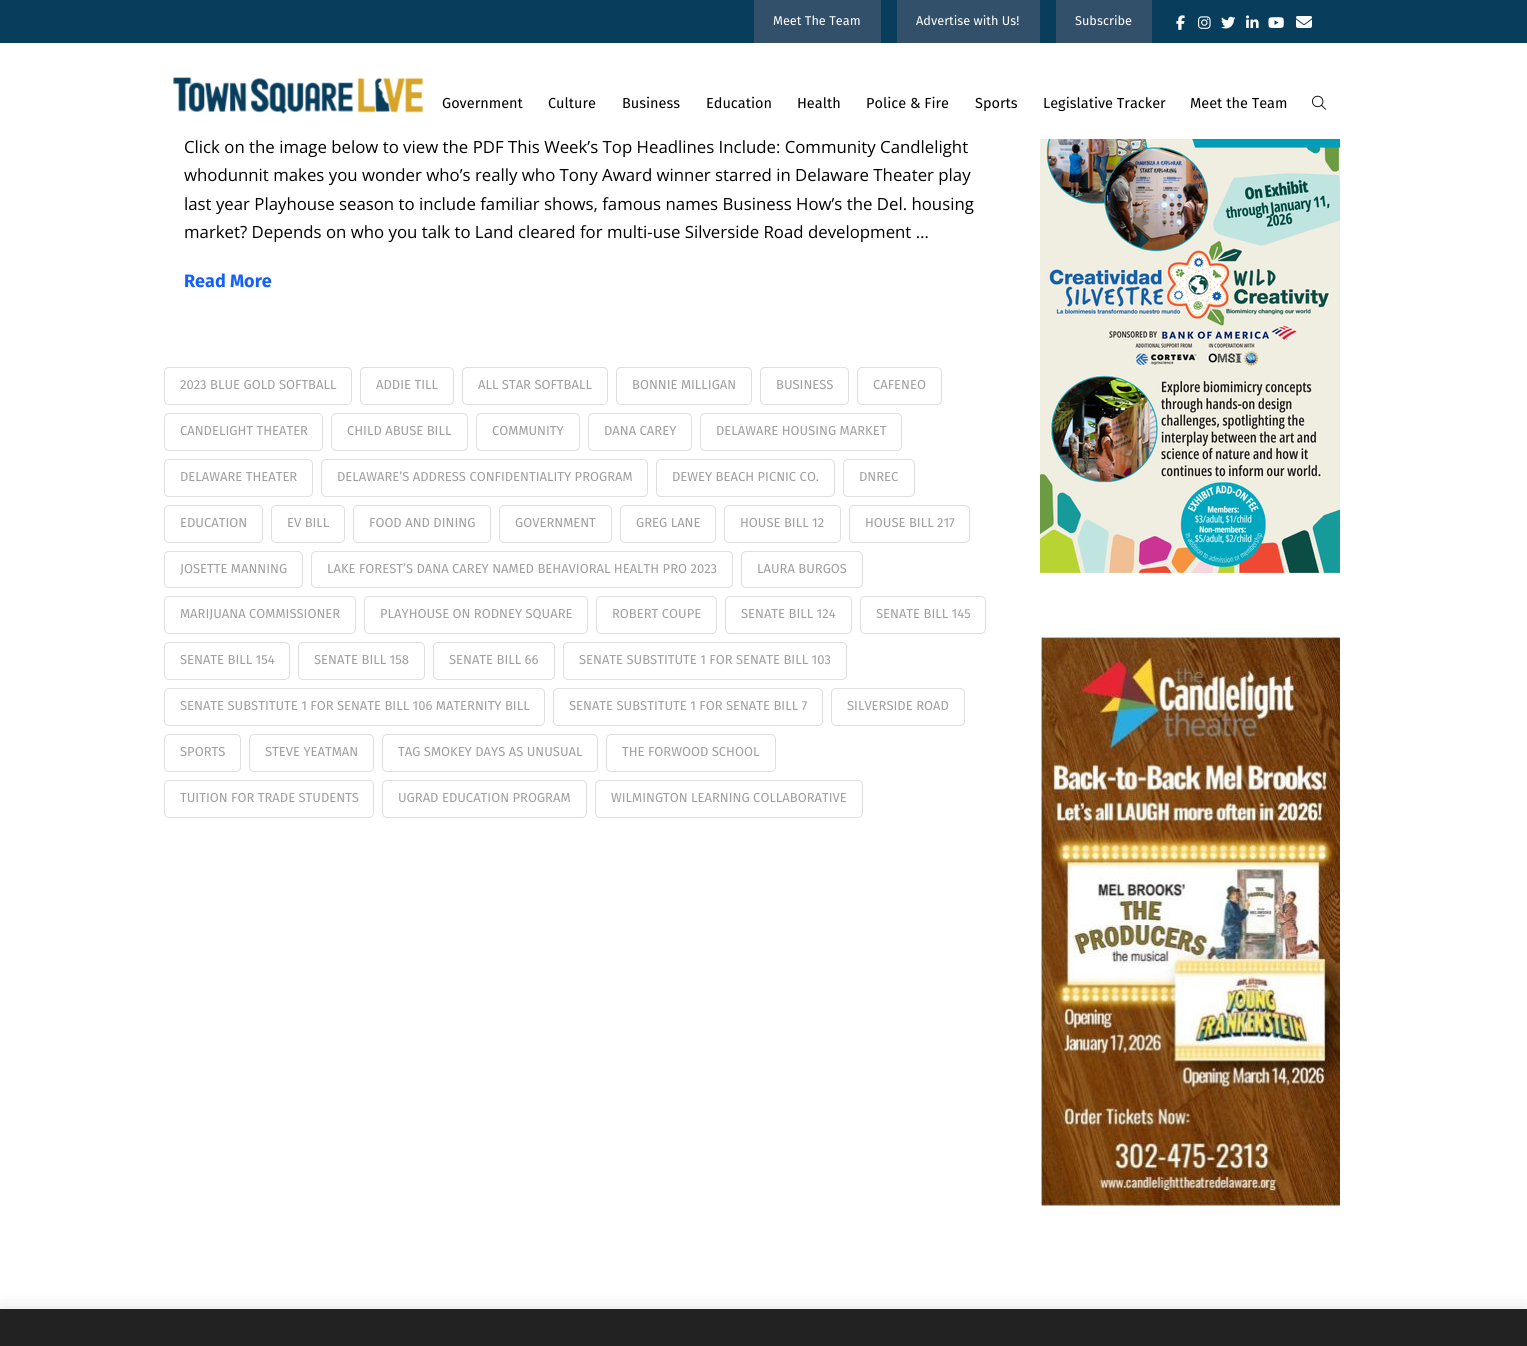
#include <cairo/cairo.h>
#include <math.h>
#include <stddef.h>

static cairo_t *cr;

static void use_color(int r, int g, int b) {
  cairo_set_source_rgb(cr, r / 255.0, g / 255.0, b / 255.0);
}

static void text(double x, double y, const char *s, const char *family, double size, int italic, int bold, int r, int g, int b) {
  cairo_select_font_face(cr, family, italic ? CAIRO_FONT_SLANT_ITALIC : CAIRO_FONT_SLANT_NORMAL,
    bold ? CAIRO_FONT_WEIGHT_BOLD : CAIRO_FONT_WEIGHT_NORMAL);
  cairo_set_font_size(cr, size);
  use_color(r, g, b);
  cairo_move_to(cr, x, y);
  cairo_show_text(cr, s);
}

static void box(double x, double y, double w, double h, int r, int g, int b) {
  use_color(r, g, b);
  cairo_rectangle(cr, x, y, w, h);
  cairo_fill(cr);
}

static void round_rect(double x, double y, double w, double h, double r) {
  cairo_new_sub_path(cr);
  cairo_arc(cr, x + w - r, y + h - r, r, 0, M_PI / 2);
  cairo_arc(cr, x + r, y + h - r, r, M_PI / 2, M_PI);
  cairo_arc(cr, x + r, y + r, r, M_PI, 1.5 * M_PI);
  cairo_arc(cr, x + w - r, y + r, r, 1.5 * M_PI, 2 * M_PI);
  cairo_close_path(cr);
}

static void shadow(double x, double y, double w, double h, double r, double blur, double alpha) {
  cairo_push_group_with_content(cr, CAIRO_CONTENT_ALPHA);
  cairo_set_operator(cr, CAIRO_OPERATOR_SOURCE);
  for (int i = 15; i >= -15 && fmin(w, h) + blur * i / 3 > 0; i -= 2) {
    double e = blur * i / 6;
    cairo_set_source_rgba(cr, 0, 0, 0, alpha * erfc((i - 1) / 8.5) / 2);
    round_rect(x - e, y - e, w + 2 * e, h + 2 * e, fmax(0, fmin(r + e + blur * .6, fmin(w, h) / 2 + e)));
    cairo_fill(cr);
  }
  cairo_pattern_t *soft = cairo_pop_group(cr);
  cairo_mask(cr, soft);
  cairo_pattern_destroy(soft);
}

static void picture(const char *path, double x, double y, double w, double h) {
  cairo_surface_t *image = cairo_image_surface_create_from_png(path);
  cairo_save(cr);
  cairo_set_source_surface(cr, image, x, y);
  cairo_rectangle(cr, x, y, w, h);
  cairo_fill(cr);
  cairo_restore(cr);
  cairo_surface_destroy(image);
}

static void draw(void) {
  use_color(255, 255, 255);
  cairo_paint(cr);
  box(0, 0, 1527, 43, 8, 61, 91);
  box(754, 0, 127, 43, 50, 80, 106);
  box(897, 0, 143, 43, 50, 80, 106);
  box(1056, 0, 96, 43, 50, 80, 106);
  picture("img_01.png", 1176, 15, 9, 15);
  picture("img_02.png", 1198, 16, 13, 13);
  picture("img_03.png", 1221, 16, 15, 13);
  picture("img_04.png", 1246, 15, 13, 13);
  picture("img_05.png", 1268, 17, 16, 11);
  picture("img_06.png", 1296, 16, 16, 12);
  picture("img_07.png", 173, 77, 251, 38);
  picture("img_08.png", 1312, 95, 14, 15);
  round_rect(164.5, 367.5, 187, 37, 4.5);
  use_color(223, 223, 223);
  cairo_set_line_width(cr, 1);
  cairo_stroke(cr);
  round_rect(360.5, 367.5, 93, 37, 4.5);
  cairo_stroke(cr);
  round_rect(462.5, 367.5, 145, 37, 4.5);
  cairo_stroke(cr);
  round_rect(616.5, 367.5, 135, 37, 4.5);
  cairo_stroke(cr);
  round_rect(760.5, 367.5, 88, 37, 4.5);
  cairo_stroke(cr);
  round_rect(857.5, 367.5, 84, 37, 4.5);
  cairo_stroke(cr);
  round_rect(164.5, 413.5, 158, 37, 4.5);
  cairo_stroke(cr);
  round_rect(331.5, 413.5, 136, 37, 4.5);
  cairo_stroke(cr);
  round_rect(476.5, 413.5, 103, 37, 4.5);
  cairo_stroke(cr);
  round_rect(588.5, 413.5, 103, 37, 4.5);
  cairo_stroke(cr);
  round_rect(700.5, 413.5, 201, 37, 4.5);
  cairo_stroke(cr);
  round_rect(164.5, 459.5, 148, 37, 4.5);
  cairo_stroke(cr);
  round_rect(321.5, 459.5, 326, 37, 4.5);
  cairo_stroke(cr);
  round_rect(656.5, 459.5, 178, 37, 4.5);
  cairo_stroke(cr);
  round_rect(843.5, 459.5, 71, 37, 4.5);
  cairo_stroke(cr);
  round_rect(164.5, 505.5, 98, 37, 4.5);
  cairo_stroke(cr);
  round_rect(271.5, 505.5, 73, 37, 4.5);
  cairo_stroke(cr);
  round_rect(353.5, 505.5, 137, 37, 4.5);
  cairo_stroke(cr);
  round_rect(499.5, 505.5, 112, 37, 4.5);
  cairo_stroke(cr);
  round_rect(620.5, 505.5, 95, 37, 4.5);
  cairo_stroke(cr);
  round_rect(724.5, 505.5, 116, 37, 4.5);
  cairo_stroke(cr);
  round_rect(849.5, 505.5, 120, 37, 4.5);
  cairo_stroke(cr);
  round_rect(164.5, 551.5, 138, 36, 4.5);
  cairo_stroke(cr);
  round_rect(311.5, 551.5, 421, 36, 4.5);
  cairo_stroke(cr);
  round_rect(741.5, 551.5, 121, 36, 4.5);
  cairo_stroke(cr);
  round_rect(164.5, 596.5, 191, 37, 4.5);
  cairo_stroke(cr);
  round_rect(364.5, 596.5, 223, 37, 4.5);
  cairo_stroke(cr);
  round_rect(596.5, 596.5, 120, 37, 4.5);
  cairo_stroke(cr);
  round_rect(725.5, 596.5, 126, 37, 4.5);
  cairo_stroke(cr);
  round_rect(860.5, 596.5, 125, 37, 4.5);
  cairo_stroke(cr);
  round_rect(164.5, 642.5, 125, 37, 4.5);
  cairo_stroke(cr);
  round_rect(298.5, 642.5, 126, 37, 4.5);
  cairo_stroke(cr);
  round_rect(433.5, 642.5, 121, 37, 4.5);
  cairo_stroke(cr);
  round_rect(563.5, 642.5, 283, 37, 4.5);
  cairo_stroke(cr);
  round_rect(164.5, 688.5, 380, 37, 4.5);
  cairo_stroke(cr);
  round_rect(553.5, 688.5, 269, 37, 4.5);
  cairo_stroke(cr);
  round_rect(831.5, 688.5, 133, 37, 4.5);
  cairo_stroke(cr);
  round_rect(164.5, 734.5, 76, 37, 4.5);
  cairo_stroke(cr);
  round_rect(249.5, 734.5, 124, 37, 4.5);
  cairo_stroke(cr);
  round_rect(382.5, 734.5, 215, 37, 4.5);
  cairo_stroke(cr);
  round_rect(606.5, 734.5, 169, 37, 4.5);
  cairo_stroke(cr);
  round_rect(164.5, 780.5, 209, 37, 4.5);
  cairo_stroke(cr);
  round_rect(382.5, 780.5, 204, 37, 4.5);
  cairo_stroke(cr);
  round_rect(595.5, 780.5, 267, 37, 4.5);
  cairo_stroke(cr);
  picture("img_09.png", 1040, 139, 300, 434);
  picture("img_10.png", 1041, 637, 299, 569);
  use_color(0, 0, 0);
  shadow(0, 1311, 1527, 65, 0, 10, 0.15);
  box(0, 1309, 1527, 37, 34, 34, 34);
  text(773, 25, "Meet The Team", "Fira Sans", 12.75, 0, 0, 255, 255, 255);
  text(916, 25, "Advertise with Us!", "Fira Sans", 12.75, 0, 0, 255, 255, 255);
  text(1075, 25, "Subscribe", "Fira Sans", 12.75, 0, 0, 255, 255, 255);
  text(442, 108, "Government", "Fira Sans", 14.5, 0, 0, 0, 0, 0);
  text(548, 108, "Culture", "Fira Sans", 14.5, 0, 0, 0, 0, 0);
  text(622, 108, "Business", "Fira Sans", 14.5, 0, 0, 0, 0, 0);
  text(706, 108, "Education", "Fira Sans", 14.5, 0, 0, 0, 0, 0);
  text(797, 108, "Health", "Fira Sans", 14.5, 0, 0, 0, 0, 0);
  text(866, 108, "Police & Fire", "Fira Sans", 14.5, 0, 0, 0, 0, 0);
  text(975, 108, "Sports", "Fira Sans", 14.5, 0, 0, 0, 0, 0);
  text(1043, 108, "Legislative Tracker", "Fira Sans", 14.5, 0, 0, 0, 0, 0);
  text(1190, 108, "Meet the Team", "Fira Sans", 14.5, 0, 0, 0, 0, 0);
  text(184, 153, "Click on the image below to view the PDF This Week’s Top Headlines Include: Community Candlelight", "Open Sans", 16.8, 0, 0, 0, 0, 0);
  text(184, 181, "whodunnit makes you wonder who’s really who Tony Award winner starred in Delaware Theater play", "Open Sans", 16.8, 0, 0, 0, 0, 0);
  text(184, 210, "last year Playhouse season to include familiar shows, famous names Business How’s the Del. housing", "Open Sans", 16.8, 0, 0, 0, 0, 0);
  text(184, 238, "market? Depends on who you talk to Land cleared for multi-use Silverside Road development …", "Open Sans", 16.8, 0, 0, 0, 0, 0);
  text(184, 287, "Read More", "Fira Sans", 18, 0, 1, 19, 96, 255);
  text(180, 389, "2023 BLUE GOLD SOFTBALL", "Fira Sans", 13, 0, 0, 159, 159, 159);
  text(376, 389, "ADDIE TILL", "Fira Sans", 13, 0, 0, 159, 159, 159);
  text(478, 389, "ALL STAR SOFTBALL", "Fira Sans", 13, 0, 0, 159, 159, 159);
  text(632, 389, "BONNIE MILLIGAN", "Fira Sans", 13, 0, 0, 159, 159, 159);
  text(776, 389, "BUSINESS", "Fira Sans", 13, 0, 0, 159, 159, 159);
  text(873, 389, "CAFENEO", "Fira Sans", 13, 0, 0, 159, 159, 159);
  text(180, 435, "CANDELIGHT THEATER", "Fira Sans", 13, 0, 0, 159, 159, 159);
  text(347, 435, "CHILD ABUSE BILL", "Fira Sans", 13, 0, 0, 159, 159, 159);
  text(492, 435, "COMMUNITY", "Fira Sans", 13, 0, 0, 159, 159, 159);
  text(604, 435, "DANA CAREY", "Fira Sans", 13, 0, 0, 159, 159, 159);
  text(716, 435, "DELAWARE HOUSING MARKET", "Fira Sans", 13, 0, 0, 159, 159, 159);
  text(180, 481, "DELAWARE THEATER", "Fira Sans", 13, 0, 0, 159, 159, 159);
  text(337, 481, "DELAWARE’S ADDRESS CONFIDENTIALITY PROGRAM", "Fira Sans", 13, 0, 0, 159, 159, 159);
  text(672, 481, "DEWEY BEACH PICNIC CO.", "Fira Sans", 13, 0, 0, 159, 159, 159);
  text(859, 481, "DNREC", "Fira Sans", 13, 0, 0, 159, 159, 159);
  text(180, 527, "EDUCATION", "Fira Sans", 13, 0, 0, 159, 159, 159);
  text(287, 527, "EV BILL", "Fira Sans", 13, 0, 0, 159, 159, 159);
  text(369, 527, "FOOD AND DINING", "Fira Sans", 13, 0, 0, 159, 159, 159);
  text(515, 527, "GOVERNMENT", "Fira Sans", 13, 0, 0, 159, 159, 159);
  text(636, 527, "GREG LANE", "Fira Sans", 13, 0, 0, 159, 159, 159);
  text(740, 527, "HOUSE BILL 12", "Fira Sans", 13, 0, 0, 159, 159, 159);
  text(865, 527, "HOUSE BILL 217", "Fira Sans", 13, 0, 0, 159, 159, 159);
  text(180, 573, "JOSETTE MANNING", "Fira Sans", 13, 0, 0, 159, 159, 159);
  text(327, 573, "LAKE FOREST’S DANA CAREY NAMED BEHAVIORAL HEALTH PRO 2023", "Fira Sans", 13, 0, 0, 159, 159, 159);
  text(757, 573, "LAURA BURGOS", "Fira Sans", 13, 0, 0, 159, 159, 159);
  text(180, 618, "MARIJUANA COMMISSIONER", "Fira Sans", 13, 0, 0, 159, 159, 159);
  text(380, 618, "PLAYHOUSE ON RODNEY SQUARE", "Fira Sans", 13, 0, 0, 159, 159, 159);
  text(612, 618, "ROBERT COUPE", "Fira Sans", 13, 0, 0, 159, 159, 159);
  text(741, 618, "SENATE BILL 124", "Fira Sans", 13, 0, 0, 159, 159, 159);
  text(876, 618, "SENATE BILL 145", "Fira Sans", 13, 0, 0, 159, 159, 159);
  text(180, 664, "SENATE BILL 154", "Fira Sans", 13, 0, 0, 159, 159, 159);
  text(314, 664, "SENATE BILL 158", "Fira Sans", 13, 0, 0, 159, 159, 159);
  text(449, 664, "SENATE BILL 66", "Fira Sans", 13, 0, 0, 159, 159, 159);
  text(579, 664, "SENATE SUBSTITUTE 1 FOR SENATE BILL 103", "Fira Sans", 13, 0, 0, 159, 159, 159);
  text(180, 710, "SENATE SUBSTITUTE 1 FOR SENATE BILL 106 MATERNITY BILL", "Fira Sans", 13, 0, 0, 159, 159, 159);
  text(569, 710, "SENATE SUBSTITUTE 1 FOR SENATE BILL 7", "Fira Sans", 13, 0, 0, 159, 159, 159);
  text(847, 710, "SILVERSIDE ROAD", "Fira Sans", 13, 0, 0, 159, 159, 159);
  text(180, 756, "SPORTS", "Fira Sans", 13, 0, 0, 159, 159, 159);
  text(265, 756, "STEVE YEATMAN", "Fira Sans", 13, 0, 0, 159, 159, 159);
  text(398, 756, "TAG SMOKEY DAYS AS UNUSUAL", "Fira Sans", 13, 0, 0, 159, 159, 159);
  text(622, 756, "THE FORWOOD SCHOOL", "Fira Sans", 13, 0, 0, 159, 159, 159);
  text(180, 802, "TUITION FOR TRADE STUDENTS", "Fira Sans", 13, 0, 0, 159, 159, 159);
  text(398, 802, "UGRAD EDUCATION PROGRAM", "Fira Sans", 13, 0, 0, 159, 159, 159);
  text(611, 802, "WILMINGTON LEARNING COLLABORATIVE", "Fira Sans", 13, 0, 0, 159, 159, 159);
}

int main(void) {
  cairo_surface_t *surface = cairo_image_surface_create(CAIRO_FORMAT_RGB24, 1527, 1346);
  cr = cairo_create(surface);
  cairo_font_options_t *options = cairo_font_options_create();
  cairo_font_options_set_hint_metrics(options, CAIRO_HINT_METRICS_OFF);
  cairo_font_options_set_hint_style(options, CAIRO_HINT_STYLE_NONE);
  cairo_set_font_options(cr, options);
  cairo_set_miter_limit(cr, 4);
  draw();
  cairo_surface_write_to_png(surface, "out.png");
  cairo_font_options_destroy(options);
  cairo_destroy(cr);
  cairo_surface_destroy(surface);
  return 0;
}
